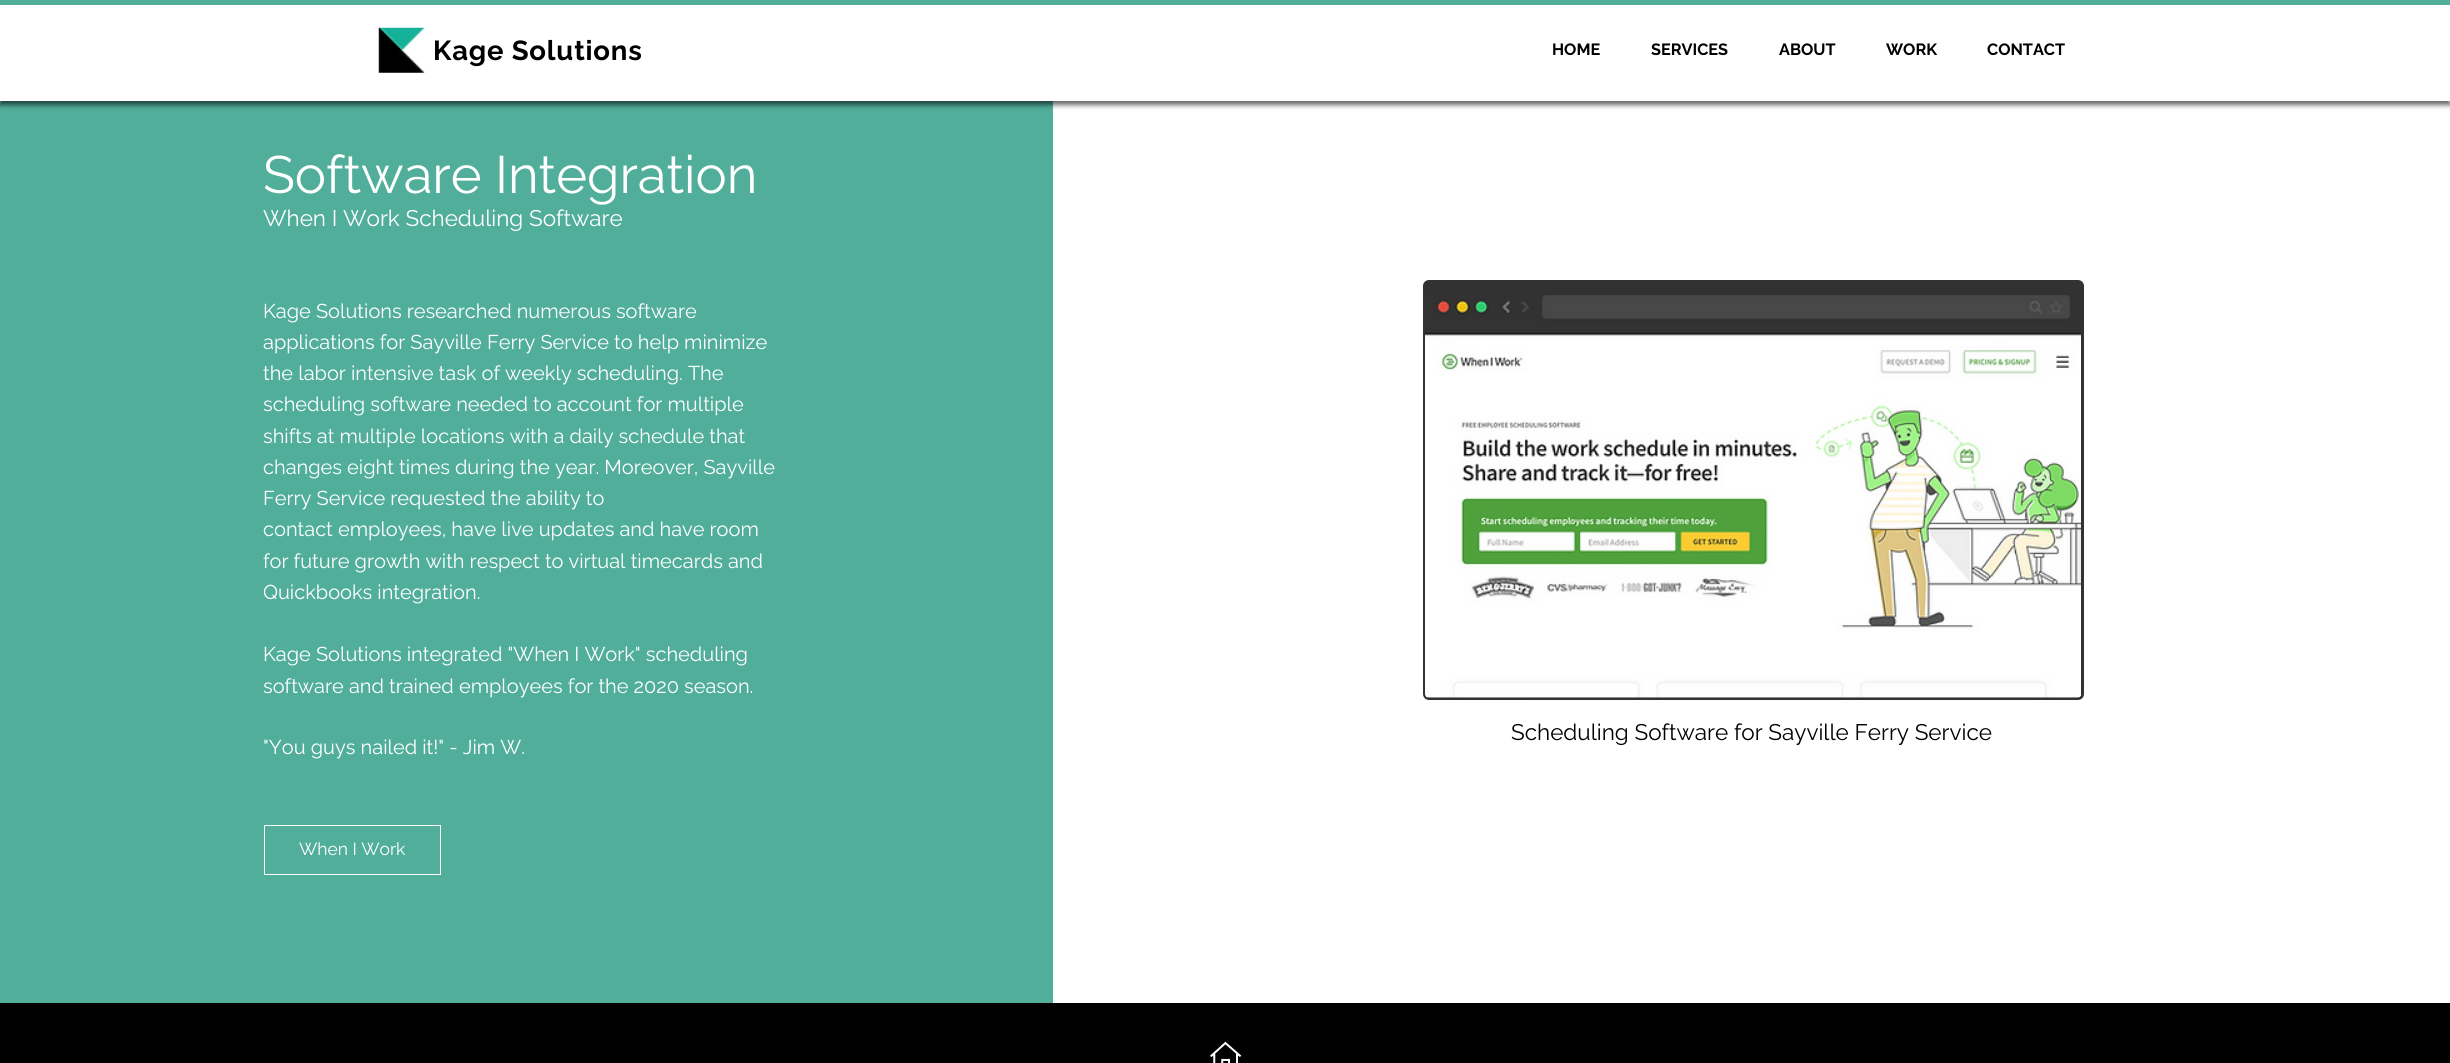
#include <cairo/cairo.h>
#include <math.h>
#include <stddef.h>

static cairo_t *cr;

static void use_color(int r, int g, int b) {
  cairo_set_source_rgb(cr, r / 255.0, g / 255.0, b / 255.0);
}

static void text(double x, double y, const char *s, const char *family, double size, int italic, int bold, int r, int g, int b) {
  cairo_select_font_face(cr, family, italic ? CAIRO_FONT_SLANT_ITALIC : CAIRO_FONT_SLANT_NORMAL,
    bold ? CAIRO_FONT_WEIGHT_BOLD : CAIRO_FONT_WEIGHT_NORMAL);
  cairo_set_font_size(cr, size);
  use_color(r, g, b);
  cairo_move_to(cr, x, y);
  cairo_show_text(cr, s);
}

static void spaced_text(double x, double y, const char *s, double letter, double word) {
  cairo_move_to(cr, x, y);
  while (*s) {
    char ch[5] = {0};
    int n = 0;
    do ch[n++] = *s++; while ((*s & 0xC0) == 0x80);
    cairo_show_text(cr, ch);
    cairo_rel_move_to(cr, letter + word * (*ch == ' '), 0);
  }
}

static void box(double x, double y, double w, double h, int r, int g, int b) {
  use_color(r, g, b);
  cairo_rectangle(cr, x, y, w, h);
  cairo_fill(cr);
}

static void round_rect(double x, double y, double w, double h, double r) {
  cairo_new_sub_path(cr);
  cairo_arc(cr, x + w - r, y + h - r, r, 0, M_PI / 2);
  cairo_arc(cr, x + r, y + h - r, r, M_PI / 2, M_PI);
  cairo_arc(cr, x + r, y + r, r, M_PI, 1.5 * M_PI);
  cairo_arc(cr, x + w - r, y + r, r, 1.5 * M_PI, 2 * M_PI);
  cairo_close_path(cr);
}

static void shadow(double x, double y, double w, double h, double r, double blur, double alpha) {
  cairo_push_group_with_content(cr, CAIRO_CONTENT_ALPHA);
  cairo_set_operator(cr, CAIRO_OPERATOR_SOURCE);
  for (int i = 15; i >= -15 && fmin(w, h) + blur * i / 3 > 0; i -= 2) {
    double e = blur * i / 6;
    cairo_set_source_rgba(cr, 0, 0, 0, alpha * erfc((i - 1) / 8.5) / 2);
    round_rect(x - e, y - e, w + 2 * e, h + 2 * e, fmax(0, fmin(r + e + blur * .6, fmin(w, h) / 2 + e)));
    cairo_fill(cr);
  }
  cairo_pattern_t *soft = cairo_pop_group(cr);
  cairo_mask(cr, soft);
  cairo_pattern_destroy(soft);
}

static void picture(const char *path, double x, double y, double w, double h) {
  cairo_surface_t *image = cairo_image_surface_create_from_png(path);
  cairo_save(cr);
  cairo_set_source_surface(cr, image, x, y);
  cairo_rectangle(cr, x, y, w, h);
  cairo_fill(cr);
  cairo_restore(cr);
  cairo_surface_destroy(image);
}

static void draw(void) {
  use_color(0, 0, 0);
  cairo_paint(cr);
  box(0, 101, 1053, 902, 81, 174, 154);
  box(1053, 101, 1397, 902, 255, 255, 255);
  use_color(0, 0, 0);
  shadow(0, 4, 2450, 101, 0, 2.5, 0.6);
  box(0, 5, 2450, 96, 255, 255, 255);
  box(0, 0, 2450, 5, 81, 174, 154);
  picture("img_01.png", 378, 27, 47, 46);
  cairo_rectangle(cr, 264.5, 825.5, 176, 49);
  use_color(255, 255, 255);
  cairo_set_line_width(cr, 1);
  cairo_stroke(cr);
  use_color(51, 50, 50);
  round_rect(1424.5, 281.5, 658, 417, 4.5);
  cairo_fill_preserve(cr);
  cairo_set_line_width(cr, 3);
  cairo_stroke(cr);
  picture("img_02.png", 1425, 295, 656, 403);
  picture("img_03.png", 1210, 1041, 32, 22);
  cairo_select_font_face(cr, "Raleway", CAIRO_FONT_SLANT_NORMAL, CAIRO_FONT_WEIGHT_BOLD);
  cairo_set_font_size(cr, 27.5);
  use_color(0, 0, 0);
  spaced_text(433, 60, "Kage Solutions", 0.8, 0);
  text(1552, 55, "HOME", "Raleway", 16.25, 0, 1, 0, 0, 0);
  text(1651, 55, "SERVICES", "Raleway", 16.25, 0, 1, 0, 0, 0);
  text(1779, 55, "ABOUT", "Raleway", 16.25, 0, 1, 0, 0, 0);
  text(1886, 55, "WORK", "Raleway", 16.25, 0, 1, 0, 0, 0);
  text(1987, 55, "CONTACT", "Raleway", 16.25, 0, 1, 0, 0, 0);
  text(263, 193, "Software Integration", "Raleway", 52.5, 0, 0, 255, 255, 255);
  text(263, 226, "When I Work Scheduling Software", "Raleway", 22.5, 0, 0, 255, 255, 255);
  text(263, 318, "Kage Solutions researched numerous software", "Raleway", 20, 0, 0, 255, 255, 255);
  text(263, 349, "applications for Sayville Ferry Service to help minimize", "Raleway", 20, 0, 0, 255, 255, 255);
  text(263, 380, "the labor intensive task of weekly scheduling. The", "Raleway", 20, 0, 0, 255, 255, 255);
  text(263, 411, "scheduling software needed to account for multiple", "Raleway", 20, 0, 0, 255, 255, 255);
  text(263, 443, "shifts at multiple locations with a daily schedule that", "Raleway", 20, 0, 0, 255, 255, 255);
  text(263, 474, "changes eight times during the year. Moreover, Sayville", "Raleway", 20, 0, 0, 255, 255, 255);
  text(263, 505, "Ferry Service requested the ability to", "Raleway", 20, 0, 0, 255, 255, 255);
  text(263, 536, "contact employees, have live updates and have room", "Raleway", 20, 0, 0, 255, 255, 255);
  text(263, 568, "for future growth with respect to virtual timecards and", "Raleway", 20, 0, 0, 255, 255, 255);
  text(263, 599, "Quickbooks integration.", "Raleway", 20, 0, 0, 255, 255, 255);
  text(263, 661, "Kage Solutions integrated \"When I Work\" scheduling", "Raleway", 20, 0, 0, 255, 255, 255);
  text(263, 693, "software and trained employees for the 2020 season.", "Raleway", 20, 0, 0, 255, 255, 255);
  text(263, 754, "\"You guys nailed it!\" - Jim W.", "Raleway", 20, 0, 0, 255, 255, 255);
  text(299, 855, "When I Work", "Raleway", 17.5, 0, 0, 255, 255, 255);
  text(1511, 740, "Scheduling Software for Sayville Ferry Service", "Raleway", 22.5, 0, 0, 0, 0, 0);
}

int main(void) {
  cairo_surface_t *surface = cairo_image_surface_create(CAIRO_FORMAT_RGB24, 2450, 1063);
  cr = cairo_create(surface);
  cairo_font_options_t *options = cairo_font_options_create();
  cairo_font_options_set_hint_metrics(options, CAIRO_HINT_METRICS_OFF);
  cairo_font_options_set_hint_style(options, CAIRO_HINT_STYLE_NONE);
  cairo_set_font_options(cr, options);
  cairo_set_miter_limit(cr, 4);
  draw();
  cairo_surface_write_to_png(surface, "out.png");
  cairo_font_options_destroy(options);
  cairo_destroy(cr);
  cairo_surface_destroy(surface);
  return 0;
}
